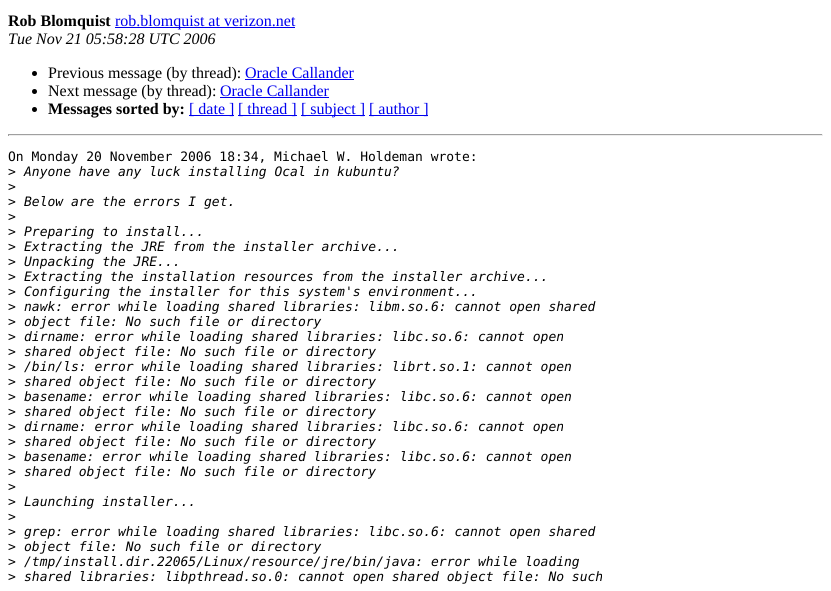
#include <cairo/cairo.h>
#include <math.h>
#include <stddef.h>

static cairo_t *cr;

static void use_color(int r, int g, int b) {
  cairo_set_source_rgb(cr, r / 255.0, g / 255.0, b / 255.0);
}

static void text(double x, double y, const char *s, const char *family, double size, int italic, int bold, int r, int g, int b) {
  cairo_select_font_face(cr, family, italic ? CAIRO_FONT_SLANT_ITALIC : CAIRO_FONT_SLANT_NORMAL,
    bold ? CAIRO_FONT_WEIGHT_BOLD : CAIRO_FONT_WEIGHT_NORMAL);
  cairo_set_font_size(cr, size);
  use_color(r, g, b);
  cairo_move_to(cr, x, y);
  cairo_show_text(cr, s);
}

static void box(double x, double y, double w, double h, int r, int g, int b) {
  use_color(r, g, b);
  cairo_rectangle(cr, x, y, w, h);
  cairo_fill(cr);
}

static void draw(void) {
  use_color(255, 255, 255);
  cairo_paint(cr);
  box(115, 27, 180, 1, 0, 0, 238);
  use_color(0, 0, 0);
  cairo_arc(cr, 34.5, 73.5, 2.5, 0, 2 * M_PI);
  cairo_fill(cr);
  box(245, 79, 109, 1, 0, 0, 238);
  use_color(0, 0, 0);
  cairo_arc(cr, 34.5, 91.5, 2.5, 0, 2 * M_PI);
  cairo_fill(cr);
  box(220, 97, 109, 1, 0, 0, 238);
  use_color(0, 0, 0);
  cairo_arc(cr, 34.5, 109.5, 2.5, 0, 2 * M_PI);
  cairo_fill(cr);
  box(189, 115, 45, 1, 0, 0, 238);
  box(238, 115, 59, 1, 0, 0, 238);
  box(301, 115, 64, 1, 0, 0, 238);
  box(369, 115, 59, 1, 0, 0, 238);
  box(8, 134, 815, 1, 159, 159, 159);
  box(822, 134, 1, 2, 238, 238, 238);
  box(8, 135, 815, 1, 238, 238, 238);
  box(8, 134, 1, 2, 159, 159, 159);
  text(8, 26, "Rob Blomquist", "Liberation Serif", 16, 0, 1, 0, 0, 0);
  text(115, 26, "rob.blomquist at verizon.net", "Liberation Serif", 16, 0, 0, 0, 0, 238);
  text(8, 44, "Tue Nov 21 05:58:28 UTC 2006", "Liberation Serif", 16, 1, 0, 0, 0, 0);
  text(48, 78, "Previous message (by thread):", "Liberation Serif", 16, 0, 0, 0, 0, 0);
  text(245, 78, "Oracle Callander", "Liberation Serif", 16, 0, 0, 0, 0, 238);
  text(48, 96, "Next message (by thread):", "Liberation Serif", 16, 0, 0, 0, 0, 0);
  text(220, 96, "Oracle Callander", "Liberation Serif", 16, 0, 0, 0, 0, 238);
  text(48, 114, "Messages sorted by:", "Liberation Serif", 16, 0, 1, 0, 0, 0);
  text(189, 114, "[ date ]", "Liberation Serif", 16, 0, 0, 0, 0, 238);
  text(238, 114, "[ thread ]", "Liberation Serif", 16, 0, 0, 0, 0, 238);
  text(301, 114, "[ subject ]", "Liberation Serif", 16, 0, 0, 0, 0, 238);
  text(369, 114, "[ author ]", "Liberation Serif", 16, 0, 0, 0, 0, 238);
  text(8, 161, "On Monday 20 November 2006 18:34, Michael W. Holdeman wrote:", "DejaVu Sans Mono", 13, 0, 0, 0, 0, 0);
  text(8, 176, ">", "DejaVu Sans Mono", 13, 0, 0, 0, 0, 0);
  text(24, 176, "Anyone have any luck installing Ocal in kubuntu?", "DejaVu Sans Mono", 13, 1, 0, 0, 0, 0);
  text(8, 191, ">", "DejaVu Sans Mono", 13, 0, 0, 0, 0, 0);
  text(8, 206, ">", "DejaVu Sans Mono", 13, 0, 0, 0, 0, 0);
  text(24, 206, "Below are the errors I get.", "DejaVu Sans Mono", 13, 1, 0, 0, 0, 0);
  text(8, 221, ">", "DejaVu Sans Mono", 13, 0, 0, 0, 0, 0);
  text(8, 236, ">", "DejaVu Sans Mono", 13, 0, 0, 0, 0, 0);
  text(24, 236, "Preparing to install...", "DejaVu Sans Mono", 13, 1, 0, 0, 0, 0);
  text(8, 251, ">", "DejaVu Sans Mono", 13, 0, 0, 0, 0, 0);
  text(24, 251, "Extracting the JRE from the installer archive...", "DejaVu Sans Mono", 13, 1, 0, 0, 0, 0);
  text(8, 266, ">", "DejaVu Sans Mono", 13, 0, 0, 0, 0, 0);
  text(24, 266, "Unpacking the JRE...", "DejaVu Sans Mono", 13, 1, 0, 0, 0, 0);
  text(8, 281, ">", "DejaVu Sans Mono", 13, 0, 0, 0, 0, 0);
  text(24, 281, "Extracting the installation resources from the installer archive...", "DejaVu Sans Mono", 13, 1, 0, 0, 0, 0);
  text(8, 296, ">", "DejaVu Sans Mono", 13, 0, 0, 0, 0, 0);
  text(24, 296, "Configuring the installer for this system's environment...", "DejaVu Sans Mono", 13, 1, 0, 0, 0, 0);
  text(8, 311, ">", "DejaVu Sans Mono", 13, 0, 0, 0, 0, 0);
  text(24, 311, "nawk: error while loading shared libraries: libm.so.6: cannot open shared", "DejaVu Sans Mono", 13, 1, 0, 0, 0, 0);
  text(8, 326, ">", "DejaVu Sans Mono", 13, 0, 0, 0, 0, 0);
  text(24, 326, "object file: No such file or directory", "DejaVu Sans Mono", 13, 1, 0, 0, 0, 0);
  text(8, 341, ">", "DejaVu Sans Mono", 13, 0, 0, 0, 0, 0);
  text(24, 341, "dirname: error while loading shared libraries: libc.so.6: cannot open", "DejaVu Sans Mono", 13, 1, 0, 0, 0, 0);
  text(8, 356, ">", "DejaVu Sans Mono", 13, 0, 0, 0, 0, 0);
  text(24, 356, "shared object file: No such file or directory", "DejaVu Sans Mono", 13, 1, 0, 0, 0, 0);
  text(8, 371, ">", "DejaVu Sans Mono", 13, 0, 0, 0, 0, 0);
  text(24, 371, "/bin/ls: error while loading shared libraries: librt.so.1: cannot open", "DejaVu Sans Mono", 13, 1, 0, 0, 0, 0);
  text(8, 386, ">", "DejaVu Sans Mono", 13, 0, 0, 0, 0, 0);
  text(24, 386, "shared object file: No such file or directory", "DejaVu Sans Mono", 13, 1, 0, 0, 0, 0);
  text(8, 401, ">", "DejaVu Sans Mono", 13, 0, 0, 0, 0, 0);
  text(24, 401, "basename: error while loading shared libraries: libc.so.6: cannot open", "DejaVu Sans Mono", 13, 1, 0, 0, 0, 0);
  text(8, 416, ">", "DejaVu Sans Mono", 13, 0, 0, 0, 0, 0);
  text(24, 416, "shared object file: No such file or directory", "DejaVu Sans Mono", 13, 1, 0, 0, 0, 0);
  text(8, 431, ">", "DejaVu Sans Mono", 13, 0, 0, 0, 0, 0);
  text(24, 431, "dirname: error while loading shared libraries: libc.so.6: cannot open", "DejaVu Sans Mono", 13, 1, 0, 0, 0, 0);
  text(8, 446, ">", "DejaVu Sans Mono", 13, 0, 0, 0, 0, 0);
  text(24, 446, "shared object file: No such file or directory", "DejaVu Sans Mono", 13, 1, 0, 0, 0, 0);
  text(8, 461, ">", "DejaVu Sans Mono", 13, 0, 0, 0, 0, 0);
  text(24, 461, "basename: error while loading shared libraries: libc.so.6: cannot open", "DejaVu Sans Mono", 13, 1, 0, 0, 0, 0);
  text(8, 476, ">", "DejaVu Sans Mono", 13, 0, 0, 0, 0, 0);
  text(24, 476, "shared object file: No such file or directory", "DejaVu Sans Mono", 13, 1, 0, 0, 0, 0);
  text(8, 491, ">", "DejaVu Sans Mono", 13, 0, 0, 0, 0, 0);
  text(8, 506, ">", "DejaVu Sans Mono", 13, 0, 0, 0, 0, 0);
  text(24, 506, "Launching installer...", "DejaVu Sans Mono", 13, 1, 0, 0, 0, 0);
  text(8, 521, ">", "DejaVu Sans Mono", 13, 0, 0, 0, 0, 0);
  text(8, 536, ">", "DejaVu Sans Mono", 13, 0, 0, 0, 0, 0);
  text(24, 536, "grep: error while loading shared libraries: libc.so.6: cannot open shared", "DejaVu Sans Mono", 13, 1, 0, 0, 0, 0);
  text(8, 551, ">", "DejaVu Sans Mono", 13, 0, 0, 0, 0, 0);
  text(24, 551, "object file: No such file or directory", "DejaVu Sans Mono", 13, 1, 0, 0, 0, 0);
  text(8, 566, ">", "DejaVu Sans Mono", 13, 0, 0, 0, 0, 0);
  text(24, 566, "/tmp/install.dir.22065/Linux/resource/jre/bin/java: error while loading", "DejaVu Sans Mono", 13, 1, 0, 0, 0, 0);
  text(8, 581, ">", "DejaVu Sans Mono", 13, 0, 0, 0, 0, 0);
  text(24, 581, "shared libraries: libpthread.so.0: cannot open shared object file: No such", "DejaVu Sans Mono", 13, 1, 0, 0, 0, 0);
}

int main(void) {
  cairo_surface_t *surface = cairo_image_surface_create(CAIRO_FORMAT_RGB24, 831, 591);
  cr = cairo_create(surface);
  cairo_font_options_t *options = cairo_font_options_create();
  cairo_font_options_set_hint_metrics(options, CAIRO_HINT_METRICS_OFF);
  cairo_font_options_set_hint_style(options, CAIRO_HINT_STYLE_NONE);
  cairo_set_font_options(cr, options);
  cairo_set_miter_limit(cr, 4);
  draw();
  cairo_surface_write_to_png(surface, "out.png");
  cairo_font_options_destroy(options);
  cairo_destroy(cr);
  cairo_surface_destroy(surface);
  return 0;
}
